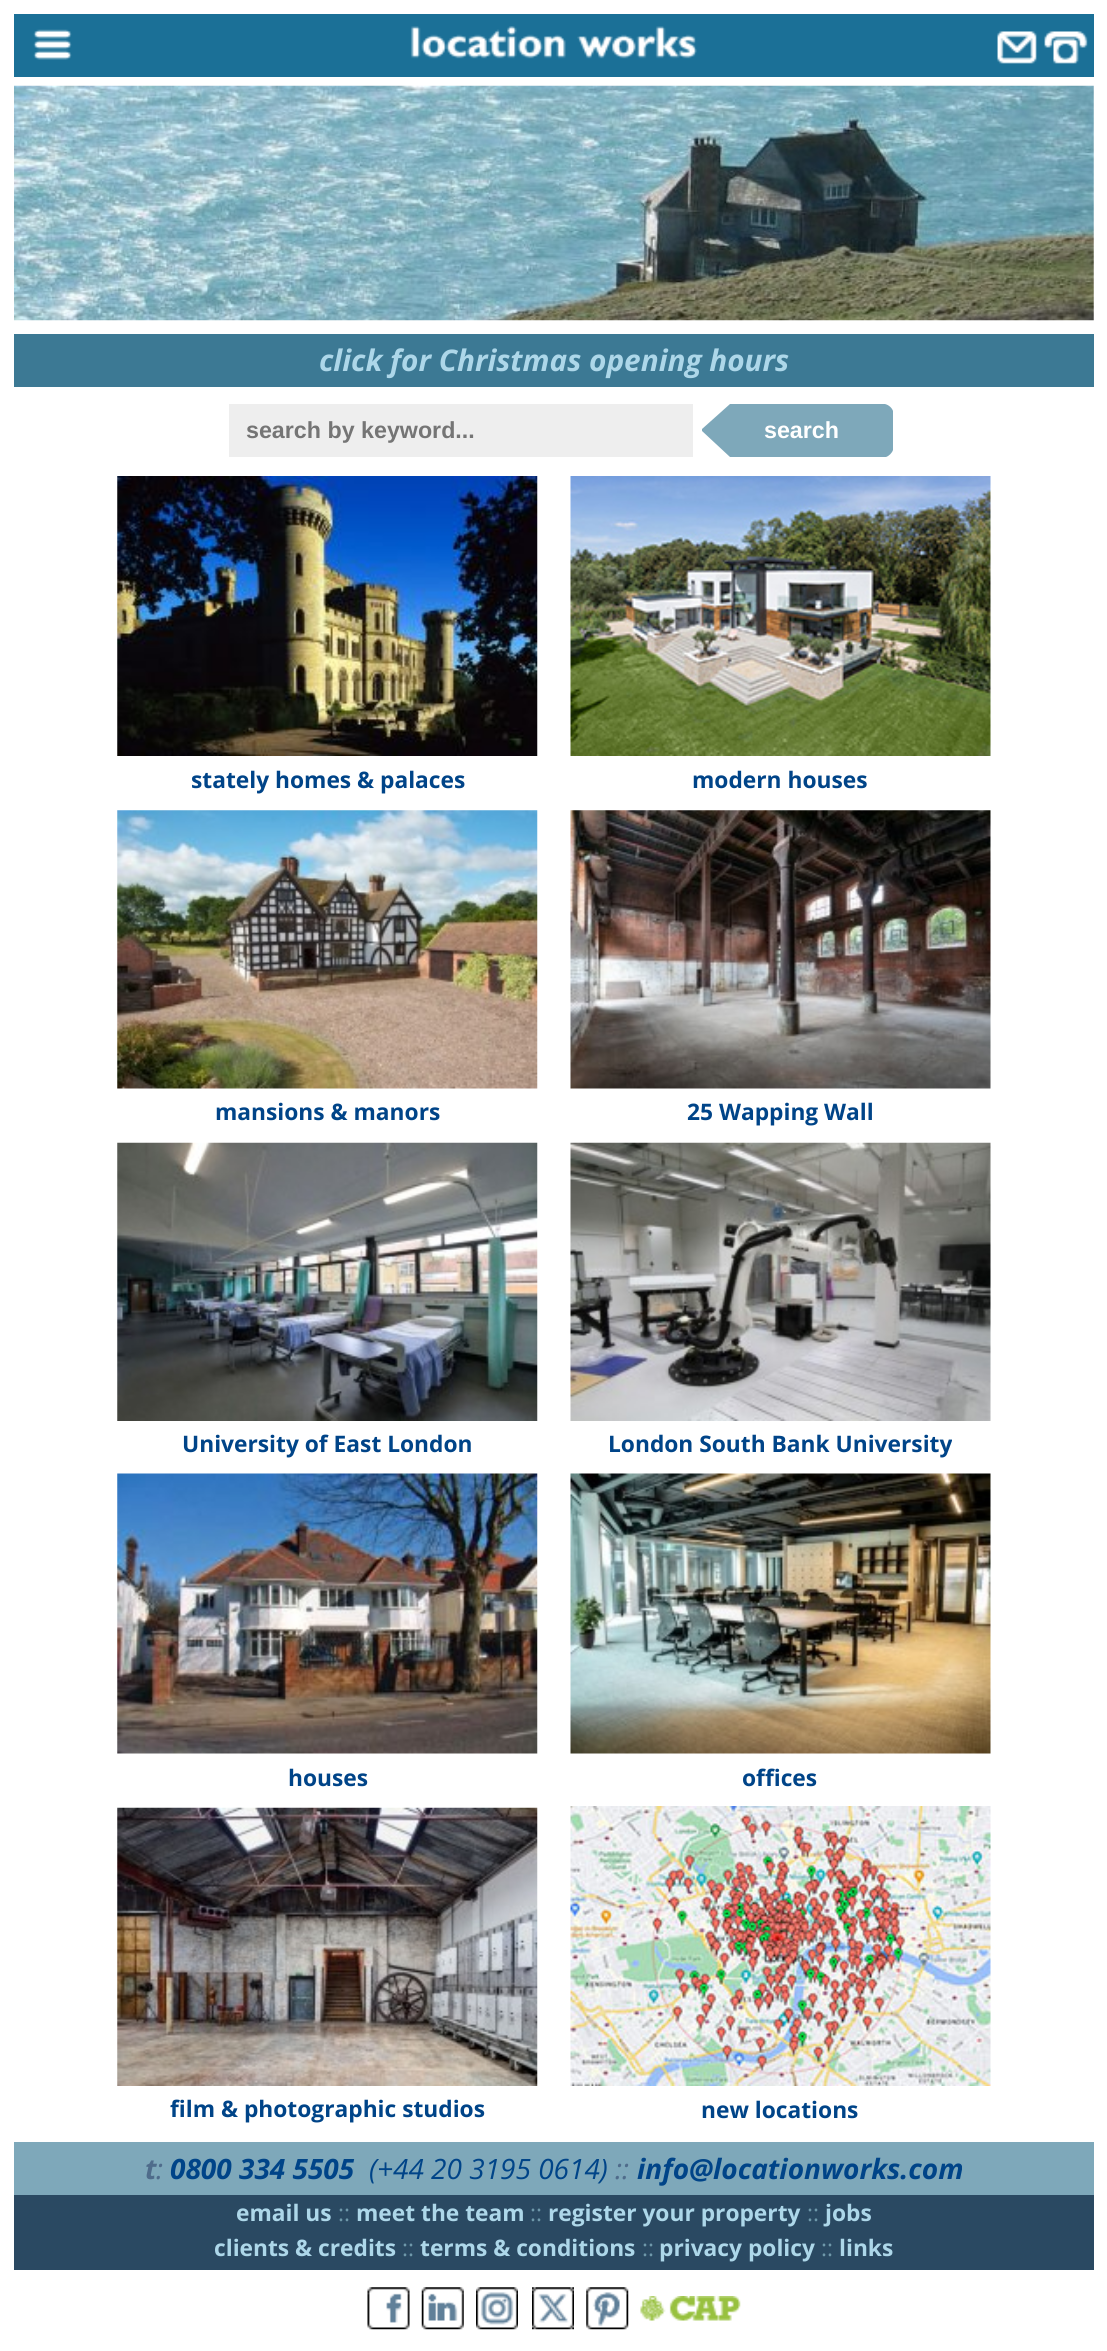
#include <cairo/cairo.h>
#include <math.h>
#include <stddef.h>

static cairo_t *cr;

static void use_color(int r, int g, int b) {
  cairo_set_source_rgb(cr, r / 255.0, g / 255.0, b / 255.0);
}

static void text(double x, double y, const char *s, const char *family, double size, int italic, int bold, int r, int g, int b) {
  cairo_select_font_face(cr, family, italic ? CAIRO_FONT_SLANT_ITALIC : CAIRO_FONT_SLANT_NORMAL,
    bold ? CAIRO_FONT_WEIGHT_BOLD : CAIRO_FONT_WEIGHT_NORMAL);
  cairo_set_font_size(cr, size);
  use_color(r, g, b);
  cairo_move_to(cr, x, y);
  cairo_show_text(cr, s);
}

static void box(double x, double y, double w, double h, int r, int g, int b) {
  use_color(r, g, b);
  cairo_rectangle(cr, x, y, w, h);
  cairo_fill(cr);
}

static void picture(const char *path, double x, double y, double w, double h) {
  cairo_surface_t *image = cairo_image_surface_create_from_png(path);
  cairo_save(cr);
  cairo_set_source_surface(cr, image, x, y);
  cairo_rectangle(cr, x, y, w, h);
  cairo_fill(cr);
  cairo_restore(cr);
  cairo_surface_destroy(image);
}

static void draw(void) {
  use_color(255, 255, 255);
  cairo_paint(cr);
  box(14, 14, 1080, 63, 27, 112, 151);
  picture("img_01.png", 33, 29, 39, 31);
  picture("img_02.png", 410, 26, 287, 33);
  picture("img_03.png", 997, 31, 40, 33);
  picture("img_04.png", 1044, 31, 44, 33);
  picture("img_05.png", 14, 85, 1080, 236);
  box(14, 334, 1080, 53, 60, 121, 148);
  box(229, 404, 464, 53, 238, 238, 238);
  use_color(126, 168, 186);
  cairo_new_path(cr);
  cairo_move_to(cr, 730, 404);
  cairo_line_to(cr, 885, 404);
  cairo_curve_to(cr, 889, 405, 892, 408, 893, 411);
  cairo_line_to(cr, 893, 450);
  cairo_curve_to(cr, 892, 453, 889, 456, 886, 457);
  cairo_line_to(cr, 730, 457);
  cairo_line_to(cr, 702, 431);
  cairo_line_to(cr, 702, 429);
  cairo_close_path(cr);
  cairo_fill(cr);
  picture("img_06.png", 117, 476, 421, 280);
  picture("img_07.png", 570, 476, 421, 280);
  picture("img_08.png", 117, 810, 421, 279);
  picture("img_09.png", 570, 810, 421, 279);
  picture("img_10.png", 117, 1142, 421, 279);
  picture("img_11.png", 570, 1142, 421, 279);
  picture("img_12.png", 117, 1473, 421, 281);
  picture("img_13.png", 570, 1473, 421, 281);
  picture("img_14.png", 117, 1807, 421, 279);
  picture("img_15.png", 570, 1806, 421, 280);
  box(14, 2142, 1080, 53, 126, 168, 186);
  box(14, 2195, 1080, 75, 42, 73, 98);
  picture("img_16.png", 367, 2287, 43, 43);
  picture("img_17.png", 421, 2287, 43, 43);
  picture("img_18.png", 476, 2287, 42, 43);
  picture("img_19.png", 532, 2287, 42, 43);
  picture("img_20.png", 586, 2287, 43, 43);
  picture("img_21.png", 640, 2296, 101, 25);
  text(319, 371, "click for Christmas opening hours", "Open Sans", 29.75, 1, 1, 173, 215, 233);
  text(246, 438, "search by keyword...", "Liberation Sans", 23.25, 0, 1, 117, 117, 117);
  text(764, 438, "search", "Liberation Sans", 23.25, 0, 1, 255, 255, 255);
  text(191, 788, "stately homes & palaces", "Open Sans", 22.75, 0, 1, 0, 68, 136);
  text(692, 788, "modern houses", "Open Sans", 22.75, 0, 1, 0, 68, 136);
  text(215, 1120, "mansions & manors", "Open Sans", 22.75, 0, 1, 0, 68, 136);
  text(687, 1120, "25 Wapping Wall", "Open Sans", 22.75, 0, 1, 0, 68, 136);
  text(182, 1452, "University of East London", "Open Sans", 22.75, 0, 1, 0, 68, 136);
  text(608, 1452, "London South Bank University", "Open Sans", 22.75, 0, 1, 0, 68, 136);
  text(288, 1786, "houses", "Open Sans", 22.75, 0, 1, 0, 68, 136);
  text(742, 1786, "offices", "Open Sans", 22.75, 0, 1, 0, 68, 136);
  text(170, 2117, "film & photographic studios", "Open Sans", 22.75, 0, 1, 0, 68, 136);
  text(701, 2118, "new locations", "Open Sans", 22.75, 0, 1, 0, 68, 136);
  text(145, 2179, "t", "Open Sans", 28, 1, 1, 79, 108, 139);
  text(156, 2179, ":", "Open Sans", 28, 1, 0, 79, 108, 139);
  text(170, 2179, "0800 334 5505", "Open Sans", 28, 1, 1, 0, 68, 136);
  text(369, 2179, "(+44 20 3195 0614)", "Open Sans", 28, 1, 0, 0, 68, 136);
  text(615, 2179, "::", "Open Sans", 28, 1, 0, 79, 108, 139);
  text(637, 2179, "info@locationworks.com", "Open Sans", 28, 1, 1, 0, 68, 136);
  text(236, 2221, "email us", "Open Sans", 22.75, 0, 1, 173, 215, 233);
  text(338, 2221, "::", "Open Sans", 22.75, 0, 0, 110, 152, 170);
  text(356, 2221, "meet the team", "Open Sans", 22.75, 0, 1, 173, 215, 233);
  text(530, 2221, "::", "Open Sans", 22.75, 0, 0, 110, 152, 170);
  text(548, 2221, "register your property", "Open Sans", 22.75, 0, 1, 173, 215, 233);
  text(807, 2221, "::", "Open Sans", 22.75, 0, 0, 110, 152, 170);
  text(825, 2221, "jobs", "Open Sans", 22.75, 0, 1, 173, 215, 233);
  text(214, 2256, "clients & credits", "Open Sans", 22.75, 0, 1, 173, 215, 233);
  text(402, 2256, "::", "Open Sans", 22.75, 0, 0, 110, 152, 170);
  text(420, 2256, "terms & conditions", "Open Sans", 22.75, 0, 1, 173, 215, 233);
  text(642, 2256, "::", "Open Sans", 22.75, 0, 0, 110, 152, 170);
  text(659, 2256, "privacy policy", "Open Sans", 22.75, 0, 1, 173, 215, 233);
  text(821, 2256, "::", "Open Sans", 22.75, 0, 0, 110, 152, 170);
  text(839, 2256, "links", "Open Sans", 22.75, 0, 1, 173, 215, 233);
}

int main(void) {
  cairo_surface_t *surface = cairo_image_surface_create(CAIRO_FORMAT_RGB24, 1107, 2351);
  cr = cairo_create(surface);
  cairo_font_options_t *options = cairo_font_options_create();
  cairo_font_options_set_hint_metrics(options, CAIRO_HINT_METRICS_OFF);
  cairo_font_options_set_hint_style(options, CAIRO_HINT_STYLE_NONE);
  cairo_set_font_options(cr, options);
  cairo_set_miter_limit(cr, 4);
  draw();
  cairo_surface_write_to_png(surface, "out.png");
  cairo_font_options_destroy(options);
  cairo_destroy(cr);
  cairo_surface_destroy(surface);
  return 0;
}
